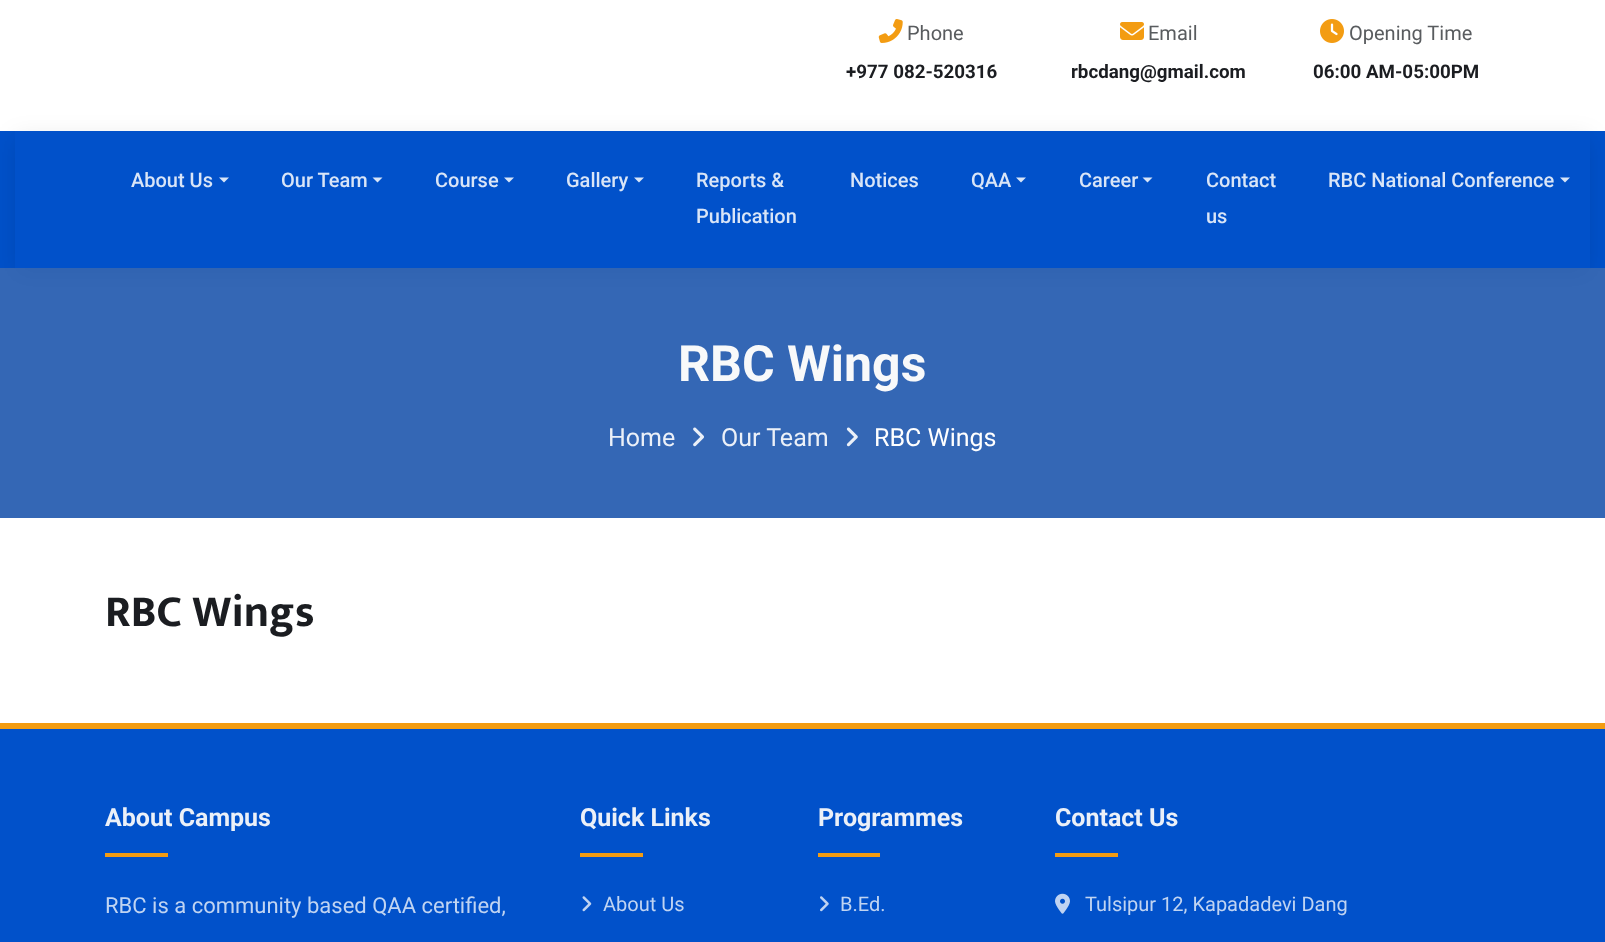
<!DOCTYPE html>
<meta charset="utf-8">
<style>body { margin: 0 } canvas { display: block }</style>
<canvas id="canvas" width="1605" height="942"></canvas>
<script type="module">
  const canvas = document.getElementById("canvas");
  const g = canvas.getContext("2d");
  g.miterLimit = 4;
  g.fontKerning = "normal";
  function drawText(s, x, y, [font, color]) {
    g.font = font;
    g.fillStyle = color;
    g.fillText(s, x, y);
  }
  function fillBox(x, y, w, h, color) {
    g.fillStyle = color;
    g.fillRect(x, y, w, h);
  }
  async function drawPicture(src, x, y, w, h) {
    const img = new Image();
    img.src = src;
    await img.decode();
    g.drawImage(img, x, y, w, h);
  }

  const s1 = ["20px Roboto", "#595C5F"];
  const s2 = ["bold 18.75px Roboto", "#1B1D21"];
  const s3 = ["500 20px Roboto", "#D9E5F7"];
  const s4 = ["bold 50px Roboto", "#F8F9FA"];
  const s5 = ["25px Roboto", "#EBF0F8"];
  const s6 = ["25px Roboto", "#FFFFFF"];
  const s7 = ["bold 45px Mukta", "#1B1D21"];
  const s8 = ["bold 25px Roboto", "#EBF0F8"];
  const s9 = ["22px Roboto", "#C0D4F2"];
  const s10 = ["20px Roboto", "#C0D4F2"];

  fillBox(0, 0, 1605, 942, "#FFFFFF");
  await drawPicture("pic1.png", 878, 19, 25, 24);
  drawText("Phone", 907, 40, s1);
  drawText("+977 082-520316", 846, 78, s2);
  await drawPicture("pic2.png", 1120, 22, 24, 18);
  drawText("Email", 1148, 40, s1);
  drawText("rbcdang@gmail.com", 1071, 78, s2);
  await drawPicture("pic3.png", 1320, 19, 24, 24);
  drawText("Opening Time", 1349, 40, s1);
  drawText("06:00 AM-05:00PM", 1313, 78, s2);
  fillBox(0, 131, 1605, 137, "#0151CA");
  g.fillStyle = "rgba(0, 0, 0, 0.1)";
  g.filter = "blur(12.5px)";
  g.beginPath();
  g.rect(15, 138, 1575, 136);
  g.fill();
  g.filter = "none";
  fillBox(15, 131, 1575, 137, "#0151CA");
  drawText("About Us", 131, 187, s3);
  g.beginPath();
  g.moveTo(219, 177.5);
  g.lineTo(229, 177.5);
  g.lineTo(224, 182.5);
  g.closePath();
  g.fill();
  drawText("Our Team", 281, 187, s3);
  g.beginPath();
  g.moveTo(372.5, 177.5);
  g.lineTo(382.5, 177.5);
  g.lineTo(377.5, 182.5);
  g.closePath();
  g.fill();
  drawText("Course", 435, 187, s3);
  g.beginPath();
  g.moveTo(504, 177.5);
  g.lineTo(514, 177.5);
  g.lineTo(509, 182.5);
  g.closePath();
  g.fill();
  drawText("Gallery", 566, 187, s3);
  g.beginPath();
  g.moveTo(634, 177.5);
  g.lineTo(644, 177.5);
  g.lineTo(639, 182.5);
  g.closePath();
  g.fill();
  drawText("Reports &", 696, 187, s3);
  drawText("Publication", 696, 223, s3);
  drawText("Notices", 850, 187, s3);
  drawText("QAA", 971, 187, s3);
  g.beginPath();
  g.moveTo(1016, 177.5);
  g.lineTo(1026, 177.5);
  g.lineTo(1021, 182.5);
  g.closePath();
  g.fill();
  drawText("Career", 1079, 187, s3);
  g.beginPath();
  g.moveTo(1142.5, 177.5);
  g.lineTo(1152.5, 177.5);
  g.lineTo(1147.5, 182.5);
  g.closePath();
  g.fill();
  drawText("Contact", 1206, 187, s3);
  drawText("us", 1206, 223, s3);
  drawText("RBC National Conference", 1328, 187, s3);
  g.beginPath();
  g.moveTo(1560, 177.5);
  g.lineTo(1570, 177.5);
  g.lineTo(1565, 182.5);
  g.closePath();
  g.fill();
  fillBox(0, 268, 1605, 250, "rgba(1, 65, 162, 0.8)");
  drawText("RBC Wings", 678, 381, s4);
  drawText("Home", 608, 446, s5);
  await drawPicture("pic4.png", 693, 427, 11, 20);
  drawText("Our Team", 721, 446, s5);
  await drawPicture("pic5.png", 846, 427, 12, 20);
  drawText("RBC Wings", 874, 446, s6);
  drawText("RBC Wings", 105, 626, s7);
  fillBox(0, 729, 1605, 213, "#0151CA");
  fillBox(0, 723, 1605, 6, "#F39C12");
  drawText("About Campus", 105, 826, s8);
  fillBox(105, 853, 63, 4, "#F39C12");
  drawText("RBC is a community based QAA certified,", 105, 913, s9);
  drawText("Quick Links", 580, 826, s8);
  fillBox(580, 853, 63, 4, "#F39C12");
  await drawPicture("pic6.png", 582, 896, 10, 16);
  drawText("About Us", 603, 911, s10);
  drawText("Programmes", 818, 826, s8);
  fillBox(818, 853, 62, 4, "#F39C12");
  await drawPicture("pic7.png", 820, 896, 9, 16);
  drawText("B.Ed.", 840, 911, s10);
  drawText("Contact Us", 1055, 826, s8);
  fillBox(1055, 853, 63, 4, "#F39C12");
  await drawPicture("pic8.png", 1055, 893, 15, 21);
  drawText("Tulsipur 12, Kapadadevi Dang", 1085, 911, s10);
</script>
